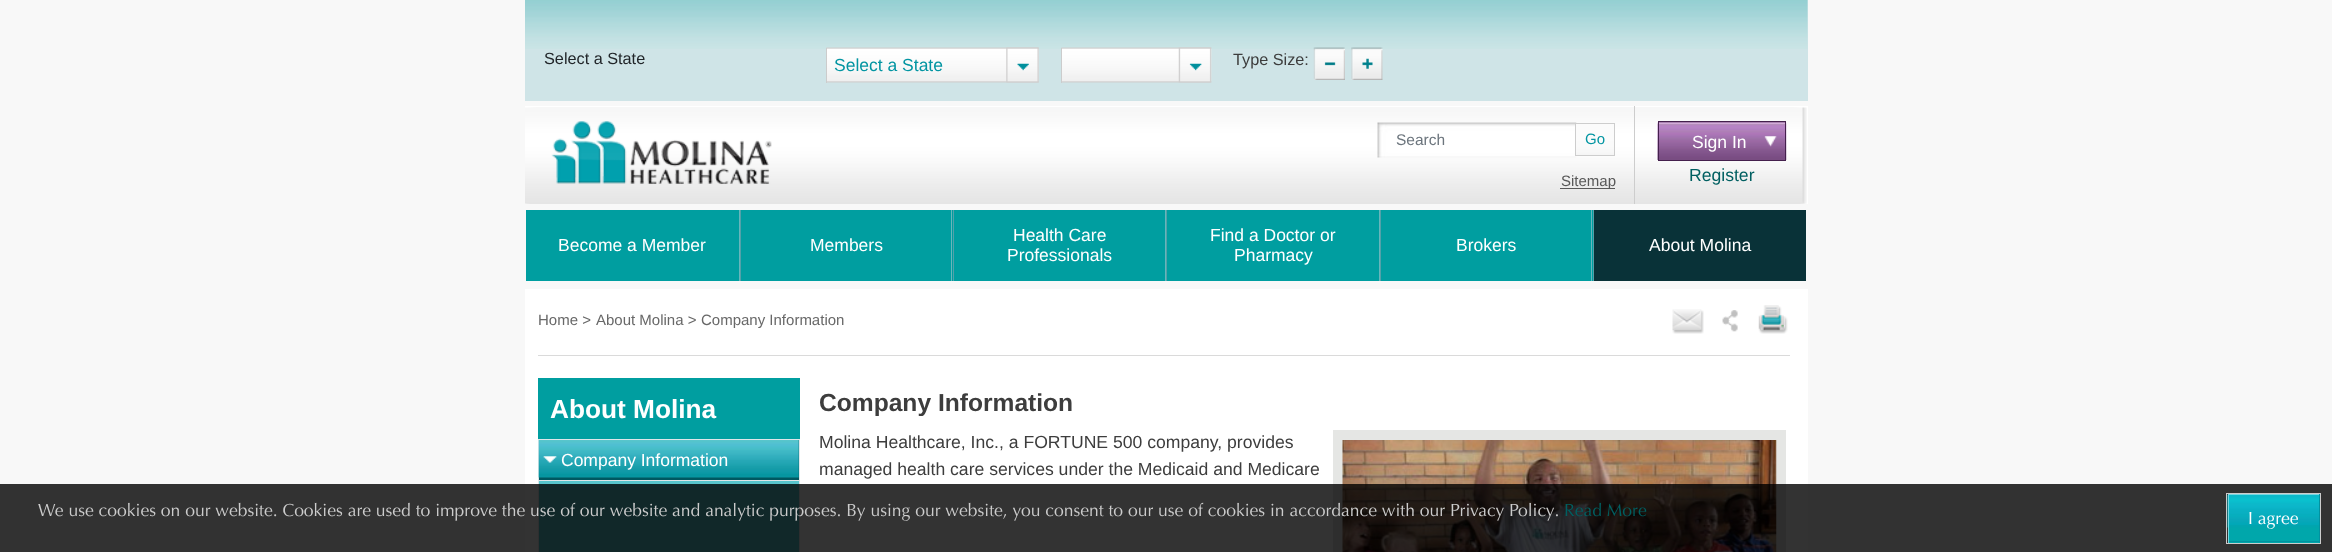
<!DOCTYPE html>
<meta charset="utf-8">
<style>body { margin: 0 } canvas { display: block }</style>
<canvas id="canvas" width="2332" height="552"></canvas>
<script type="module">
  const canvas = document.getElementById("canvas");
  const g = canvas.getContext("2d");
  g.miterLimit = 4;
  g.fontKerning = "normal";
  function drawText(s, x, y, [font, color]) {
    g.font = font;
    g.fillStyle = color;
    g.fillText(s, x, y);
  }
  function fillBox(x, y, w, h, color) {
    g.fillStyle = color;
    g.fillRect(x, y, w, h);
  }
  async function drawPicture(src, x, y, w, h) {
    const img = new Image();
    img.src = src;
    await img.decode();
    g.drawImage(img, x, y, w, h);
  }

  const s1 = ["16.25px Liberation Sans", "#212529"];
  const s2 = ["17.5px Liberation Sans", "#0395A2"];
  const s3 = ["16.25px Liberation Sans", "#3D3D3D"];
  const s4 = ["15.5px Liberation Sans", "#6C757D"];
  const s5 = ["15px Liberation Sans", "#0395A2"];
  const s6 = ["15px Liberation Sans", "#595959"];
  const s7 = ["17.5px Liberation Sans", "#FFFFFF"];
  const s8 = ["17.6px Liberation Sans", "#005F61"];
  const s9 = ["15px Liberation Sans", "#686868"];
  const s10 = ["bold 26.25px Liberation Sans", "#FFFFFF"];
  const s11 = ["bold 24.6px Liberation Sans", "#3D3D3D"];
  const s12 = ["17.6px Liberation Sans", "#3D3D3D"];
  const s13 = ["17.5px Optima", "#CCCCCC"];
  const s14 = ["17.5px Optima", "#005F61"];
  const s15 = ["17.5px Optima", "#FFFFFF"];

  fillBox(0, 0, 2332, 552, "#F8F8F8");
  fillBox(525, 0, 1283, 101, "#CFE4E7");
  await drawPicture("pic1.png", 525, 0, 1283, 49);
  drawText("Select a State", 544, 64, s1);
  await drawPicture("pic2.png", 826, 47, 213, 36);
  fillBox(826, 48, 1, 35, "#CCCCCC");
  drawText("Select a State", 834, 71, s2);
  await drawPicture("pic3.png", 1006, 47, 33, 36);
  await drawPicture("pic4.png", 1061, 47, 151, 36);
  fillBox(1061, 48, 1, 35, "#CCCCCC");
  await drawPicture("pic5.png", 1178, 47, 34, 36);
  drawText("Type Size:", 1233, 65, s3);
  await drawPicture("pic6.png", 1313, 47, 32, 33);
  await drawPicture("pic7.png", 1351, 47, 32, 33);
  fillBox(525, 106, 1283, 98, "#FFFFFF");
  await drawPicture("pic8.png", 525, 107, 1282, 97);
  await drawPicture("pic9.png", 551, 121, 221, 63);
  await drawPicture("pic10.png", 1377, 122, 200, 36);
  drawText("Search", 1396, 145, s4);
  await drawPicture("pic11.png", 1576, 124, 38, 31);
  g.strokeStyle = "#CDCDCD";
  g.strokeRect(1575.5, 123.5, 39, 32);
  drawText("Go", 1585, 144, s5);
  fillBox(1560, 188, 55, 1, "#595959");
  drawText("Sitemap", 1561, 186, s6);
  fillBox(1634, 106, 1, 98, "#CDCDCD");
  fillBox(1659, 122, 126, 1, "#774C81");
  await drawPicture("pic12.png", 1657, 122, 130, 38);
  g.strokeStyle = "#44204D";
  g.strokeRect(1658.5, 121.5, 127, 39);
  drawText("Sign In", 1692, 148, s7);
  await drawPicture("pic13.png", 1764, 136, 13, 11);
  drawText("Register", 1689, 181, s8);
  fillBox(526, 210, 213, 71, "#009EA0");
  fillBox(739, 210, 1, 71, "#68B6BC");
  drawText("Become a Member", 558, 251, s7);
  fillBox(741, 210, 212, 71, "#009EA0");
  fillBox(951, 210, 1, 71, "#68B6BC");
  fillBox(740, 210, 1, 71, "#53A1A9");
  drawText("Members", 810, 251, s7);
  fillBox(954, 210, 211, 71, "#009EA0");
  fillBox(1165, 210, 1, 71, "#68B6BC");
  fillBox(953, 210, 1, 71, "#53A1A9");
  drawText("Health Care", 1013, 241, s7);
  drawText("Professionals", 1007, 261, s7);
  fillBox(1167, 210, 212, 71, "#009EA0");
  fillBox(1379, 210, 1, 71, "#68B6BC");
  fillBox(1166, 210, 1, 71, "#53A1A9");
  drawText("Find a Doctor or", 1210, 241, s7);
  drawText("Pharmacy", 1234, 261, s7);
  fillBox(1381, 210, 212, 71, "#009EA0");
  fillBox(1591, 210, 1, 71, "#68B6BC");
  fillBox(1380, 210, 1, 71, "#53A1A9");
  drawText("Brokers", 1456, 251, s7);
  fillBox(1594, 210, 212, 71, "#093238");
  fillBox(1593, 210, 1, 71, "#53A1A9");
  drawText("About Molina", 1649, 251, s7);
  fillBox(525, 289, 1283, 263, "#FFFFFF");
  fillBox(538, 355, 1252, 1, "#DADADA");
  drawText("Home >", 538, 325, s9);
  drawText("About Molina >", 596, 325, s9);
  drawText("Company Information", 701, 325, s9);
  await drawPicture("pic14.png", 1672, 309, 32, 25);
  await drawPicture("pic15.png", 1722, 310, 16, 22);
  await drawPicture("pic16.png", 1758, 305, 30, 29);
  fillBox(538, 378, 262, 61, "#009EA0");
  drawText("About Molina", 550, 418, s10);
  fillBox(538, 439, 262, 1, "#DEE6E9");
  fillBox(799, 439, 1, 113, "#DEE6E9");
  fillBox(538, 439, 1, 113, "#DEE6E9");
  fillBox(539, 440, 260, 40, "#005861");
  await drawPicture("pic17.png", 538, 440, 261, 38);
  fillBox(539, 480, 260, 1, "#DEE6E9");
  await drawPicture("pic18.png", 543, 456, 14, 7);
  drawText("Company Information", 561, 466, s7);
  fillBox(539, 481, 260, 71, "#58C5CC");
  drawText("Company Information", 819, 411, s11);
  drawText("Molina Healthcare, Inc., a FORTUNE 500 company, provides", 819, 448, s12);
  fillBox(1333, 430, 453, 122, "#E5E6E4");
  await drawPicture("pic19.png", 1342, 440, 435, 112);
  drawText("managed health care services under the Medicaid and Medicare", 819, 475, s12);
  fillBox(0, 484, 2332, 68, "rgba(0, 0, 0, 0.8)");
  drawText("We use cookies on our website. Cookies are used to improve the use of our website and analytic purposes. By using our website, you consent to our use of cookies in accordance with our Privacy Policy.", 38, 516, s13);
  drawText("Read More", 1564, 516, s14);
  fillBox(2229, 527, 90, 16, "#00A7AB");
  await drawPicture("pic20.png", 2227, 495, 92, 33);
  fillBox(2228, 494, 92, 1, "#75D7E2");
  fillBox(2319, 494, 1, 49, "#0292A0");
  fillBox(2228, 541, 92, 1, "#0292A0");
  fillBox(2228, 494, 1, 49, "#75D7E2");
  g.strokeStyle = "#CCCCCC";
  g.strokeRect(2226.5, 493.5, 94, 50);
  drawText("I agree", 2248, 524, s15);
</script>
